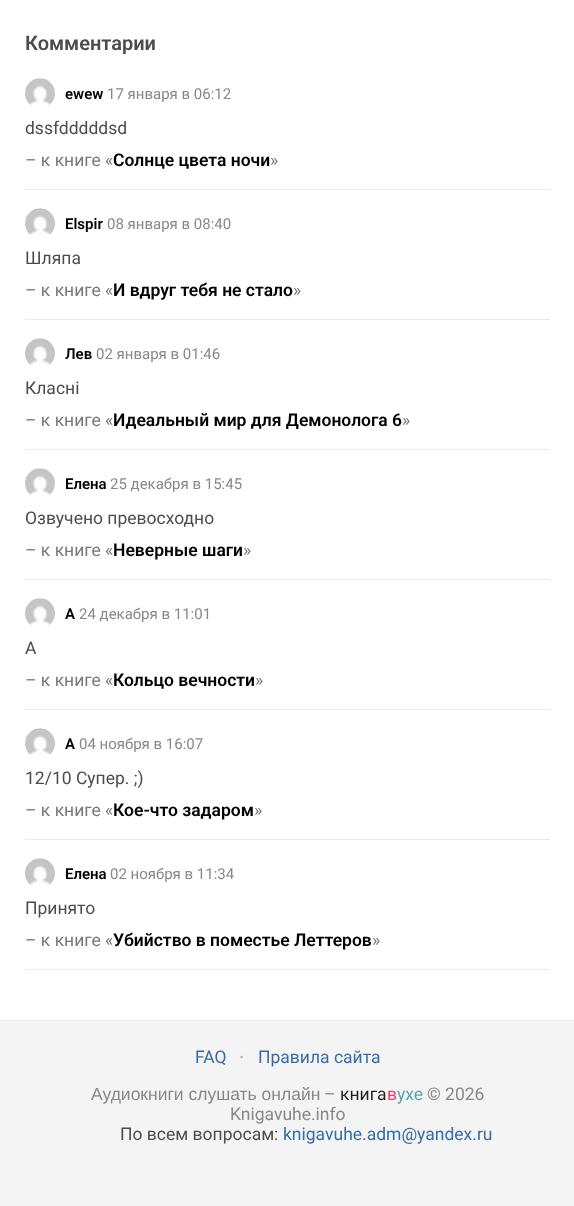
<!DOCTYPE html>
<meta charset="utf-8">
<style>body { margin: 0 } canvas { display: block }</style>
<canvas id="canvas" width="574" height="1206"></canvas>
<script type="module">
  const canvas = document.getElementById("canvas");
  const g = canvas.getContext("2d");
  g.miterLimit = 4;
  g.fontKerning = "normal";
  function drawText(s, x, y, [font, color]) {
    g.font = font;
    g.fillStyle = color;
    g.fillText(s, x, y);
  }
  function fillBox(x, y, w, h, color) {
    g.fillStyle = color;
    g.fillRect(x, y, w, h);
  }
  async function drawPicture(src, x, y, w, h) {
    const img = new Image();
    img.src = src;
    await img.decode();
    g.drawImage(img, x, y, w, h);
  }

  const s1 = ["600 20px Roboto", "#4C4C4C"];
  const s2 = ["600 15px Roboto", "#000000"];
  const s3 = ["15px Roboto", "#888888"];
  const s4 = ["17.5px Roboto", "#4C4C4C"];
  const s5 = ["17.5px Roboto", "#777777"];
  const s6 = ["600 17.5px Roboto", "#000000"];
  const s7 = ["17.5px Roboto", "#386CA8"];
  const s8 = ["bold 17.5px Roboto", "#BBBBBB"];
  const s9 = ["17.5px Liberation Sans", "#888888"];
  const s10 = ["17.5px Roboto", "#888888"];
  const s11 = ["17.5px Roboto", "#231F20"];
  const s12 = ["17.5px Roboto", "#F03B6D"];
  const s13 = ["17.5px Roboto", "#54A7AA"];

  fillBox(0, 0, 574, 1206, "#F4F4F4");
  fillBox(0, 0, 574, 1020, "#FFFFFF");
  drawText("Комментарии", 25, 50, s1);
  fillBox(25, 189, 525, 1, "#EAEAEA");
  await drawPicture("pic1.png", 25, 78, 30, 27);
  drawText("ewew", 65, 99, s2);
  drawText("17 января в 06:12", 107, 99, s3);
  drawText("dssfdddddsd", 25, 134, s4);
  drawText("– к книге «", 25, 166, s5);
  drawText("Солнце цвета ночи", 113, 166, s6);
  drawText("»", 270, 166, s5);
  fillBox(25, 319, 525, 1, "#EAEAEA");
  await drawPicture("pic2.png", 25, 208, 30, 27);
  drawText("Elspir", 65, 229, s2);
  drawText("08 января в 08:40", 107, 229, s3);
  drawText("Шляпа", 25, 264, s4);
  drawText("– к книге «", 25, 296, s5);
  drawText("И вдруг тебя не стало", 113, 296, s6);
  drawText("»", 293, 296, s5);
  fillBox(25, 449, 525, 1, "#EAEAEA");
  await drawPicture("pic3.png", 25, 338, 30, 27);
  drawText("Лев", 65, 359, s2);
  drawText("02 января в 01:46", 96, 359, s3);
  drawText("Класні", 25, 394, s4);
  drawText("– к книге «", 25, 426, s5);
  drawText("Идеальный мир для Демонолога 6", 113, 426, s6);
  drawText("»", 402, 426, s5);
  fillBox(25, 579, 525, 1, "#EAEAEA");
  await drawPicture("pic2.png", 25, 468, 30, 27);
  drawText("Елена", 65, 489, s2);
  drawText("25 декабря в 15:45", 110, 489, s3);
  drawText("Озвучено превосходно", 25, 524, s4);
  drawText("– к книге «", 25, 556, s5);
  drawText("Неверные шаги", 113, 556, s6);
  drawText("»", 243, 556, s5);
  fillBox(25, 709, 525, 1, "#EAEAEA");
  await drawPicture("pic4.png", 25, 598, 30, 27);
  drawText("А", 65, 619, s2);
  drawText("24 декабря в 11:01", 79, 619, s3);
  drawText("А", 25, 654, s4);
  drawText("– к книге «", 25, 686, s5);
  drawText("Кольцо вечности", 113, 686, s6);
  drawText("»", 255, 686, s5);
  fillBox(25, 839, 525, 1, "#EAEAEA");
  await drawPicture("pic2.png", 25, 728, 30, 27);
  drawText("А", 65, 749, s2);
  drawText("04 ноября в 16:07", 79, 749, s3);
  drawText("12/10 Супер. ;)", 25, 784, s4);
  drawText("– к книге «", 25, 816, s5);
  drawText("Кое-что задаром", 113, 816, s6);
  drawText("»", 254, 816, s5);
  fillBox(25, 969, 525, 1, "#EAEAEA");
  await drawPicture("pic5.png", 25, 858, 30, 27);
  drawText("Елена", 65, 879, s2);
  drawText("02 ноября в 11:34", 110, 879, s3);
  drawText("Принято", 25, 914, s4);
  drawText("– к книге «", 25, 946, s5);
  drawText("Убийство в поместье Леттеров", 113, 946, s6);
  drawText("»", 372, 946, s5);
  fillBox(0, 1020, 574, 1, "#EAEAEA");
  drawText("FAQ", 195, 1063, s7);
  drawText("·", 239, 1063, s8);
  drawText("Правила сайта", 258, 1063, s7);
  drawText("Аудиокниги слушать онлайн", 91, 1100, s9);
  drawText("–", 324, 1100, s10);
  drawText("книга", 340, 1100, s11);
  drawText("в", 387, 1100, s12);
  drawText("ухе", 397, 1100, s13);
  drawText("© 2026", 427, 1100, s10);
  drawText("Knigavuhe.info", 230, 1120, s10);
  drawText("По всем вопросам:", 120, 1140, s4);
  drawText("knigavuhe.adm@yandex.ru", 283, 1140, s7);
</script>
